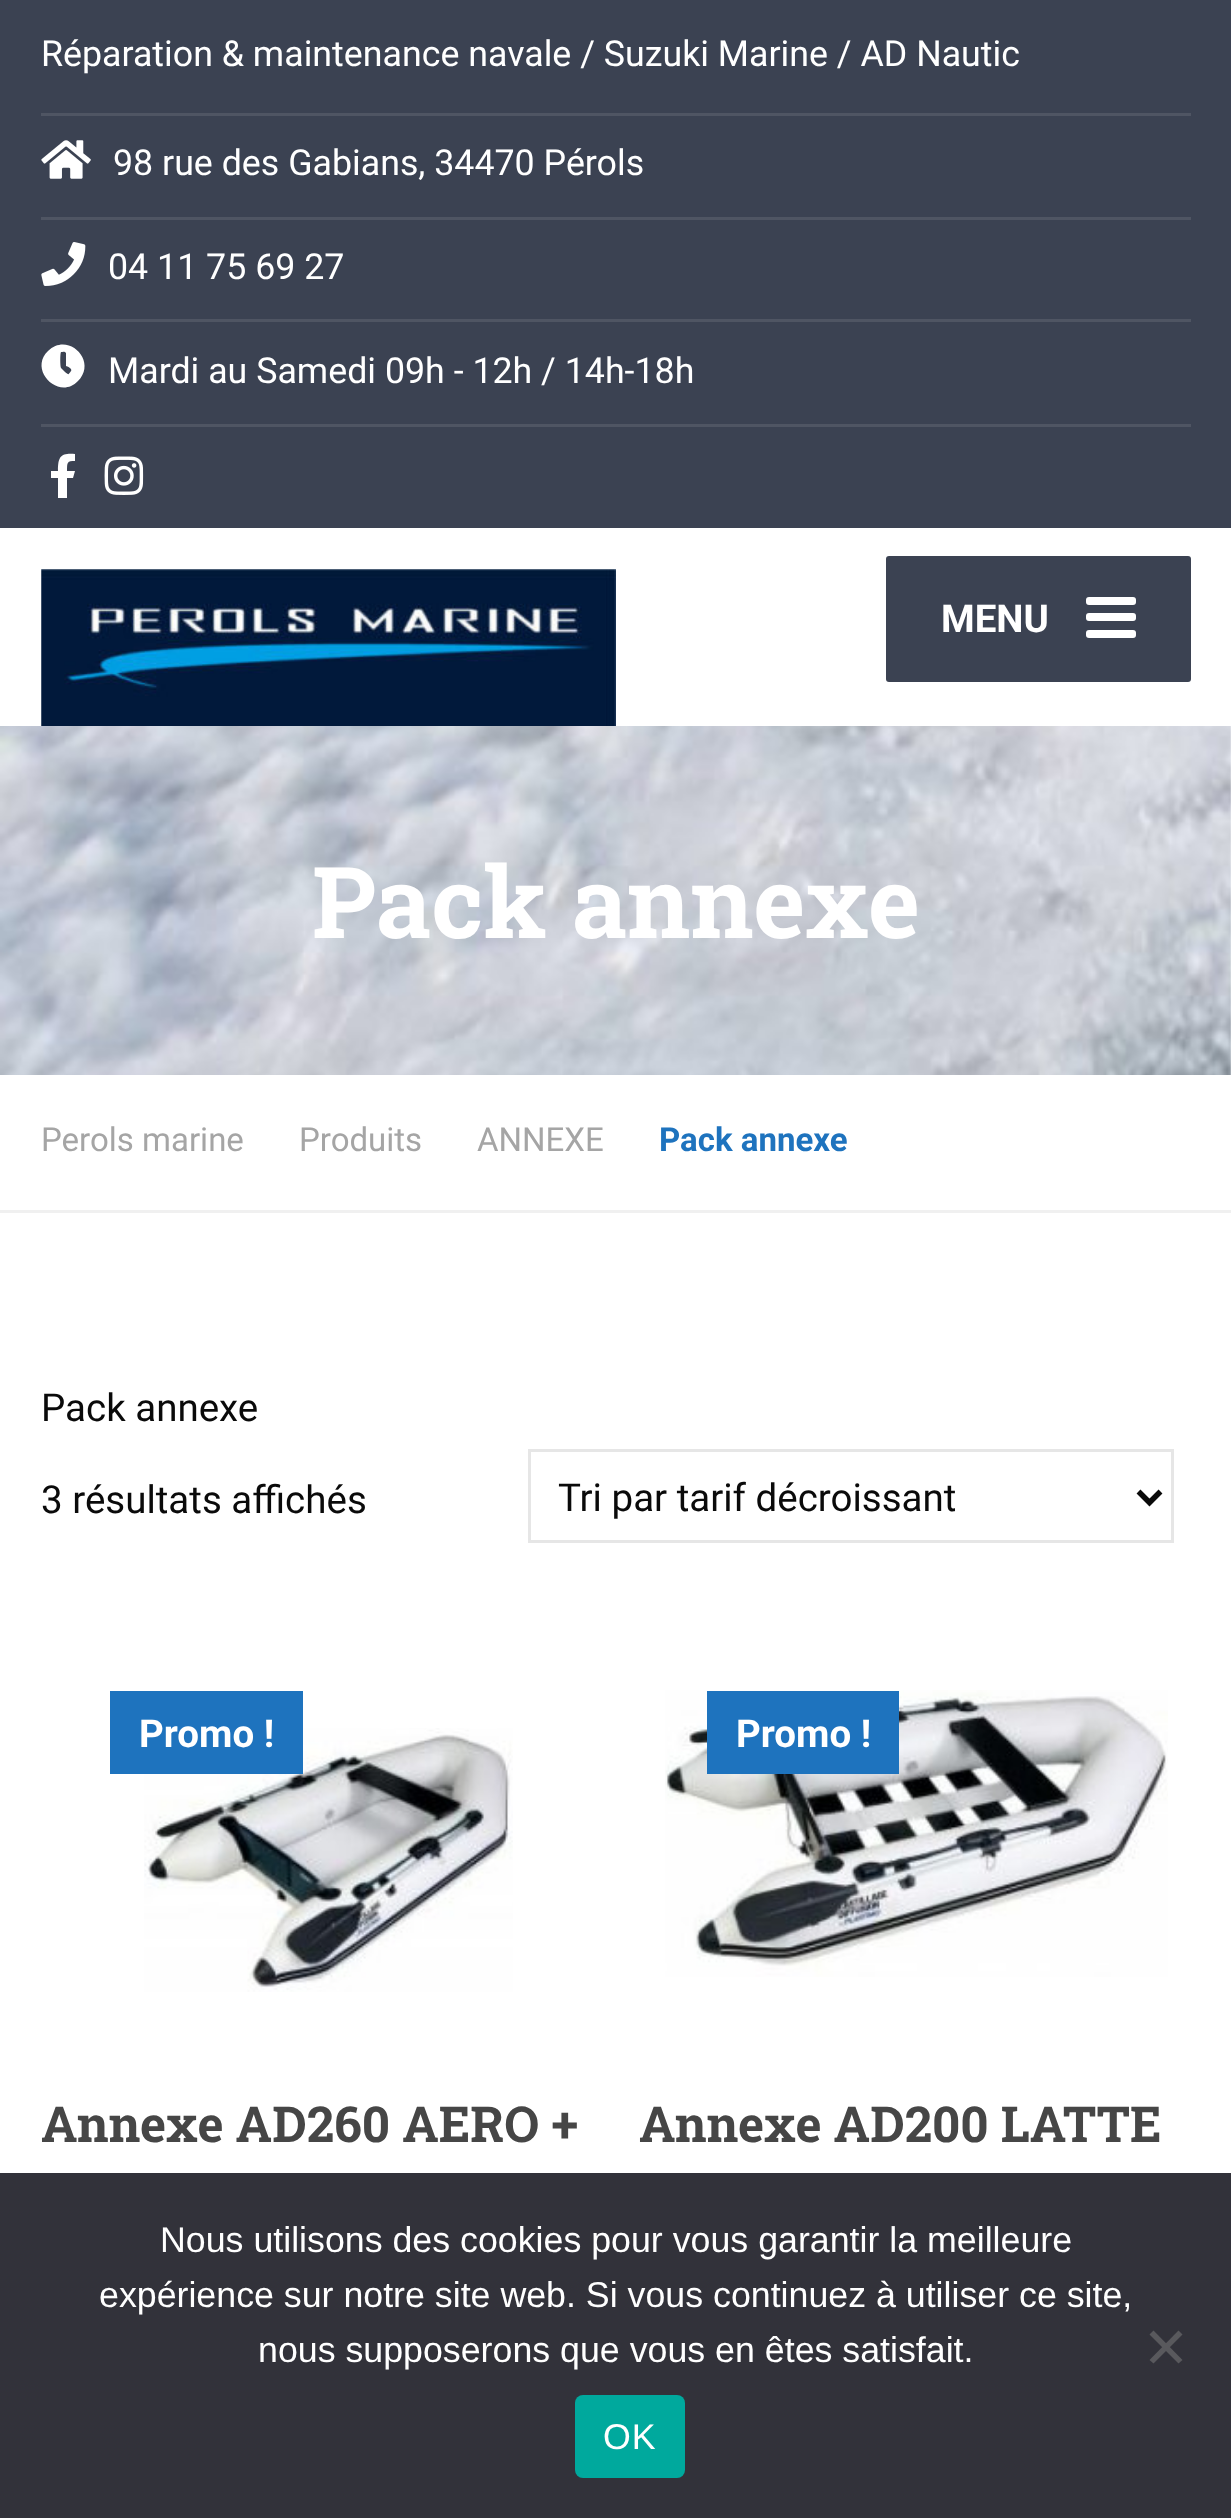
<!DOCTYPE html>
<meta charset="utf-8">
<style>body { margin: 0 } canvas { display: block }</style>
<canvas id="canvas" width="1231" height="2518"></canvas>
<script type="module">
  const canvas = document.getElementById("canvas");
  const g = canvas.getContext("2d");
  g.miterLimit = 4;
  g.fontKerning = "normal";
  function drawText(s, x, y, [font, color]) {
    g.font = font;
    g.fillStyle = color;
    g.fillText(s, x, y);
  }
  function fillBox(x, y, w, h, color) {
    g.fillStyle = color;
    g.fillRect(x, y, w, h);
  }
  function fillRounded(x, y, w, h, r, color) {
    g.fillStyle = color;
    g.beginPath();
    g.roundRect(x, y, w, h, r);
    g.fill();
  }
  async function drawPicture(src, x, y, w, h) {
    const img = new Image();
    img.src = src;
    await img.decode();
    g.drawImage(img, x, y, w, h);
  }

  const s1 = ["35.75px Roboto", "#FFFFFF"];
  const s2 = ["bold 38.5px Roboto", "#FFFFFF"];
  const s3 = ["bold 99px Roboto Slab", "#FFFFFF"];
  const s4 = ["33px Roboto", "#A5A5A5"];
  const s5 = ["bold 33px Roboto", "#1E73BE"];
  const s6 = ["38.5px Roboto", "#0A0A0A"];
  const s7 = ["bold 49.5px Roboto Slab", "#464646"];
  const s8 = ["35.75px Liberation Sans", "#FFFFFF"];

  fillBox(0, 0, 1231, 2518, "#FFFFFF");
  fillBox(0, 0, 1231, 528, "#3B4252");
  drawText("Réparation & maintenance navale / Suzuki Marine / AD Nautic", 41, 66, s1);
  fillBox(41, 113, 1150, 3, "#4F5563");
  await drawPicture("pic1.png", 41, 140, 50, 39);
  drawText("98 rue des Gabians, 34470 Pérols", 113, 175, s1);
  fillBox(41, 217, 1150, 3, "#4F5563");
  await drawPicture("pic2.png", 41, 242, 45, 44);
  drawText("04 11 75 69 27", 108, 279, s1);
  fillBox(41, 319, 1150, 3, "#4F5563");
  g.fillStyle = "#FFFFFF";
  g.beginPath();
  g.moveTo(48, 351);
  g.bezierCurveTo(68, 331, 98, 361, 78, 381);
  g.bezierCurveTo(59, 401, 28, 370, 48, 351);
  g.closePath();
  g.moveTo(71, 371);
  g.bezierCurveTo(73, 369, 67, 366, 66, 366);
  g.lineTo(66, 353);
  g.bezierCurveTo(65, 351, 62, 352, 61, 352);
  g.bezierCurveTo(60, 353, 60, 367, 61, 368);
  g.lineTo(65, 372);
  g.bezierCurveTo(69, 375, 68, 375, 71, 371);
  g.closePath();
  g.fill();
  drawText("Mardi au Samedi 09h - 12h / 14h-18h", 108, 383, s1);
  fillBox(41, 424, 1150, 3, "#4F5563");
  g.fillStyle = "#FFFFFF";
  g.beginPath();
  g.moveTo(73, 478);
  g.lineTo(67, 478);
  g.lineTo(67, 498);
  g.lineTo(58, 498);
  g.lineTo(58, 478);
  g.lineTo(51, 478);
  g.lineTo(51, 471);
  g.lineTo(58, 471);
  g.bezierCurveTo(58, 456, 61, 453, 75, 454);
  g.lineTo(75, 461);
  g.bezierCurveTo(67, 461, 67, 462, 67, 471);
  g.lineTo(75, 471);
  g.closePath();
  g.fill();
  await drawPicture("pic3.png", 104, 456, 40, 39);
  await drawPicture("pic4.png", 41, 569, 575, 157);
  fillRounded(886, 556, 305, 126, 3, "#3B4252");
  drawText("MENU", 941, 632, s2);
  fillRounded(1086, 597, 50, 8, 3, "#FFFFFF");
  fillRounded(1086, 613, 50, 8, 3, "#FFFFFF");
  fillRounded(1086, 630, 50, 8, 3, "#FFFFFF");
  await drawPicture("pic5.png", 0, 726, 1231, 349);
  drawText("Pack annexe", 312, 938, s3);
  fillBox(0, 1210, 1231, 3, "#F0F0F0");
  drawText("Perols marine", 41, 1151, s4);
  drawText("Produits", 299, 1151, s4);
  drawText("ANNEXE", 477, 1151, s4);
  drawText("Pack annexe", 659, 1151, s5);
  drawText("Pack annexe", 41, 1421, s6);
  drawText("3 résultats affichés", 41, 1513, s6);
  g.strokeStyle = "#E6E6E6";
  g.lineWidth = 3;
  g.strokeRect(529.5, 1450.5, 643, 91);
  g.beginPath();
  g.moveTo(1138.5, 1491.5);
  g.lineTo(1149.5, 1502.5);
  g.lineTo(1160.5, 1491.5);
  g.strokeStyle = "#0A0A0A";
  g.lineWidth = 5.5;
  g.stroke();
  drawText("Tri par tarif décroissant", 558, 1511, s6);
  await drawPicture("pic6.png", 144, 1728, 369, 264);
  fillBox(110, 1691, 193, 83, "#1E73BE");
  drawText("Promo !", 139, 1747, s2);
  drawText("Annexe AD260 AERO +", 41, 2142, s7);
  await drawPicture("pic7.png", 665, 1690, 503, 287);
  fillBox(707, 1691, 192, 83, "#1E73BE");
  drawText("Promo !", 736, 1747, s2);
  drawText("Annexe AD200 LATTE", 639, 2142, s7);
  fillBox(0, 2173, 1231, 345, "#32323A");
  drawText("Nous utilisons des cookies pour vous garantir la meilleure", 160, 2252, s8);
  drawText("expérience sur notre site web. Si vous continuez à utiliser ce site,", 99, 2307, s8);
  drawText("nous supposerons que vous en êtes satisfait.", 258, 2362, s8);
  g.fillStyle = "#59595D";
  g.beginPath();
  g.moveTo(1178.5, 2330.5);
  g.lineTo(1182.5, 2334.5);
  g.lineTo(1153.5, 2363.5);
  g.lineTo(1149.5, 2360);
  g.closePath();
  g.fill();
  g.beginPath();
  g.moveTo(1149.5, 2334.5);
  g.lineTo(1153.5, 2330.5);
  g.lineTo(1182.5, 2360);
  g.lineTo(1178.5, 2363.5);
  g.closePath();
  g.fill();
  fillRounded(575, 2395, 110, 83, 8, "#00A99D");
  g.letterSpacing = "1px";
  drawText("OK", 603, 2449, s8);
</script>
